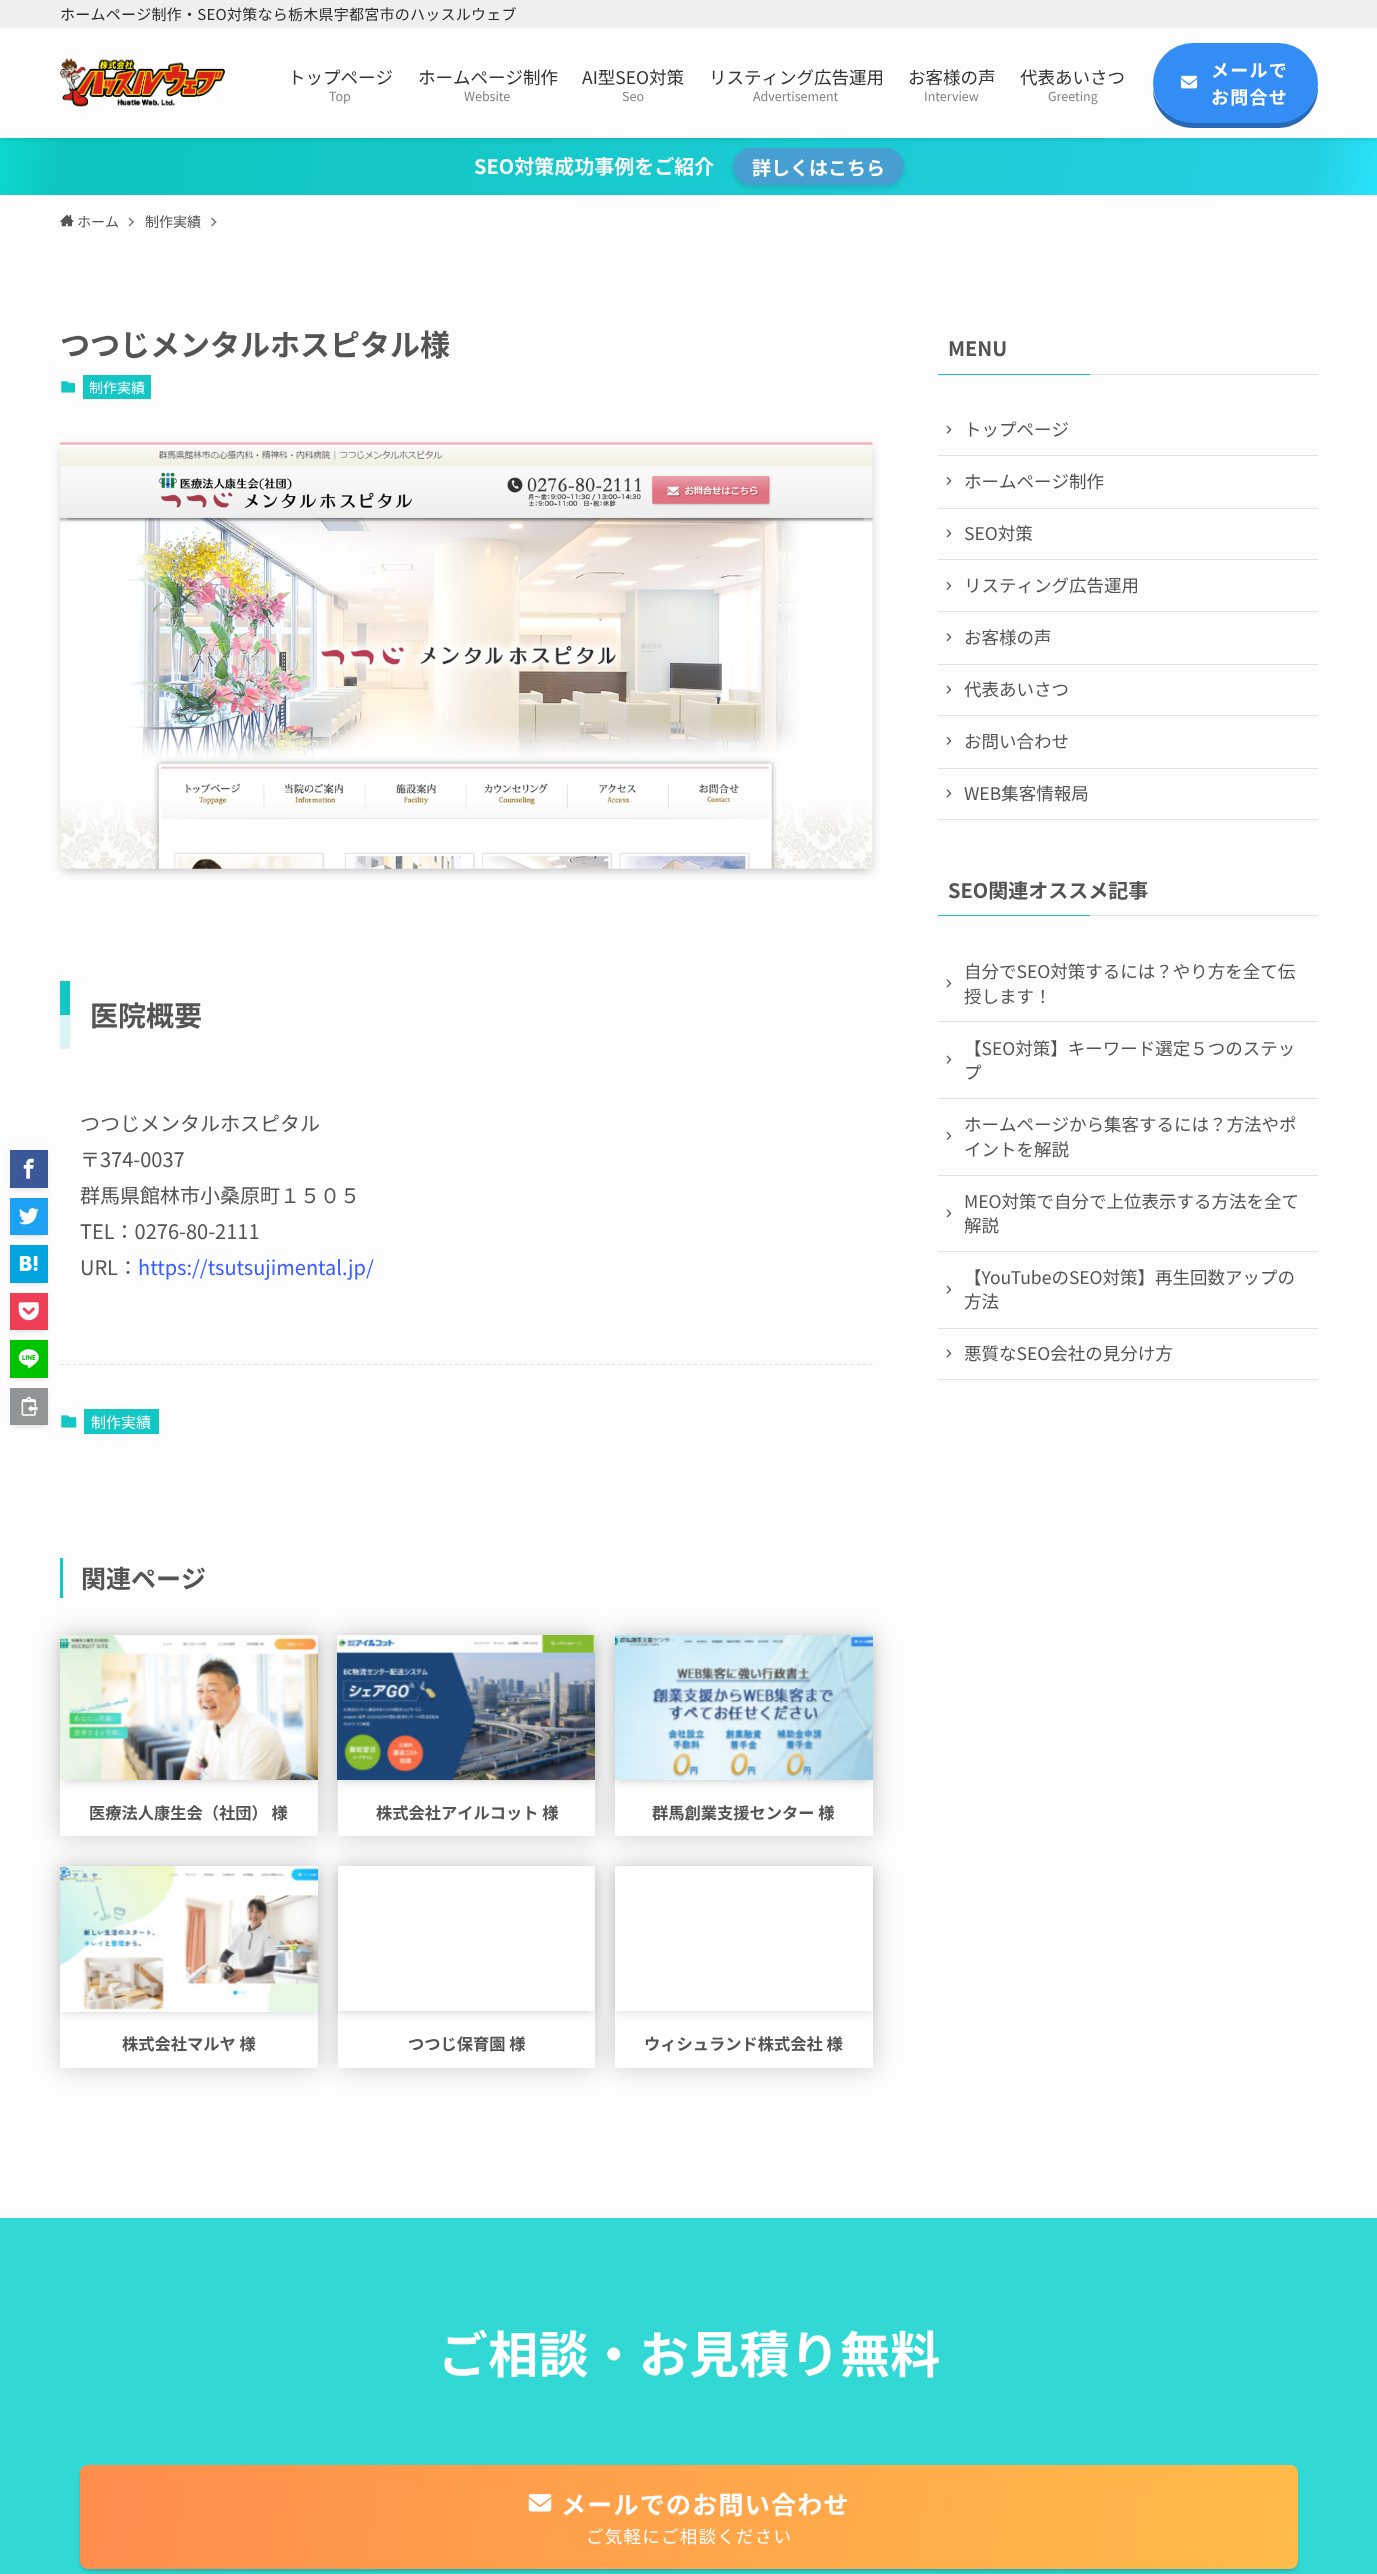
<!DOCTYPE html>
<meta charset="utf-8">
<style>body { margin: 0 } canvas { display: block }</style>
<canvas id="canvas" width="1377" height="2574"></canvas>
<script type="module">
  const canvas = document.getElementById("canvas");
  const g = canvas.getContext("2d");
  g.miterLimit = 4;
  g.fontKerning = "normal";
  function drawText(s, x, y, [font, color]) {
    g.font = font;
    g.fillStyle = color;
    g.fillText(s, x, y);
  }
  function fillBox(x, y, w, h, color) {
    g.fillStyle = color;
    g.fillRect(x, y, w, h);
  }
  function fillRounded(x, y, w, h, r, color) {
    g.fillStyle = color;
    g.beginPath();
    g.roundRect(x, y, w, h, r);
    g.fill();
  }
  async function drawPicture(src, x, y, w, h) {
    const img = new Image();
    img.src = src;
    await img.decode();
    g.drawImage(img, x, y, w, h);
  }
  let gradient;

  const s1 = ["15px Noto Sans JP", "#2B2B2B"];
  const s2 = ["17.5px Noto Sans JP", "#333333"];
  const s3 = ["12.5px Noto Sans JP", "#848484"];
  const s4 = ["bold 18px Noto Sans JP", "#FFFFFF"];
  const s5 = ["bold 20px Noto Sans JP", "#F7F7F7"];
  const s6 = ["bold 19px Noto Sans JP", "#FFFFFF"];
  const s7 = ["14px Noto Sans JP", "#545454"];
  const s8 = ["bold 30px Noto Sans JP", "#545454"];
  const s9 = ["14px Noto Sans JP", "#FFFFFF"];
  const s10 = ["bold 28px Noto Sans JP", "#545454"];
  const s11 = ["20px Noto Sans JP", "#545454"];
  const s12 = ["20px Noto Sans JP", "#385CFF"];
  const s13 = ["15px Noto Sans JP", "#FFFFFF"];
  const s14 = ["bold 25px Noto Sans JP", "#545454"];
  const s15 = ["bold 16.25px Noto Sans JP", "#545454"];
  const s16 = ["bold 20px Noto Sans JP", "#545454"];
  const s17 = ["17.5px Noto Sans JP", "#545454"];
  const s18 = ["bold 50px Noto Sans JP", "#FFFFFF"];
  const s19 = ["bold 25px Noto Sans JP", "#FFFFFF"];
  const s20 = ["17.5px Noto Sans JP", "#FFFFFF"];

  fillBox(0, 0, 1377, 2574, "#FDFDFD");
  gradient = g.createLinearGradient(16, 48, 1362, 285);
  gradient.addColorStop(0, "#0ED9CF");
  gradient.addColorStop(0.05, "#0DC5BC");
  gradient.addColorStop(0.95, "#24CFE2");
  gradient.addColorStop(1, "#28E4F9");
  g.fillStyle = gradient;
  g.fillRect(0, 138, 1377, 57);
  g.fillStyle = "rgba(0, 0, 0, 0.12)";
  g.filter = "blur(2.5px)";
  g.beginPath();
  g.rect(0, 1, 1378, 138);
  g.fill();
  g.filter = "none";
  fillBox(0, 28, 1377, 110, "#FDFDFD");
  fillBox(0, 0, 1377, 28, "#EEF0EF");
  g.letterSpacing = "0.25px";
  drawText("ホームページ制作・SEO対策なら栃木県宇都宮市のハッスルウェブ", 60, 20, s1);
  await drawPicture("pic1.png", 60, 58, 165, 49);
  g.letterSpacing = "0px";
  drawText("トップページ", 288, 84, s2);
  drawText("Top", 329, 101, s3);
  drawText("ホームページ制作", 418, 84, s2);
  drawText("Website", 464, 101, s3);
  drawText("AI型SEO対策", 582, 84, s2);
  drawText("Seo", 622, 101, s3);
  drawText("リスティング広告運用", 709, 84, s2);
  drawText("Advertisement", 753, 101, s3);
  drawText("お客様の声", 908, 84, s2);
  drawText("Interview", 924, 101, s3);
  drawText("代表あいさつ", 1020, 84, s2);
  drawText("Greeting", 1048, 101, s3);
  g.fillStyle = "#266AB7";
  g.beginPath();
  g.moveTo(1153, 89);
  g.bezierCurveTo(1153, 111, 1171, 128, 1193, 128);
  g.lineTo(1278, 128);
  g.bezierCurveTo(1300, 128, 1318, 110, 1318, 88);
  g.lineTo(1317, 82);
  g.lineTo(1318, 82);
  g.bezierCurveTo(1318, 105, 1300, 122, 1278, 122);
  g.lineTo(1192, 122);
  g.bezierCurveTo(1173, 122, 1156, 108, 1153, 89);
  g.closePath();
  g.fill();
  fillRounded(1153, 43, 165, 80, 40, "#338DF4");
  await drawPicture("pic2.png", 1180, 75, 18, 14);
  g.letterSpacing = "1.25px";
  drawText("メールで", 1211, 77, s4);
  drawText("お問合せ", 1211, 104, s4);
  g.letterSpacing = "0px";
  drawText("SEO対策成功事例をご紹介", 474, 174, s5);
  g.fillStyle = "rgba(0, 0, 0, 0.12)";
  g.filter = "blur(2.5px)";
  g.beginPath();
  g.roundRect(733, 150, 171, 38, 19);
  g.fill();
  g.filter = "none";
  fillRounded(733, 148, 171, 37, 18.5, "#479ED1");
  drawText("詳しくはこちら", 752, 175, s6);
  await drawPicture("pic3.png", 60, 214, 14, 13);
  drawText("ホーム", 77, 227, s7);
  g.fillStyle = "#767676";
  g.beginPath();
  g.moveTo(129.5, 217.5);
  g.lineTo(134, 222);
  g.lineTo(133, 223);
  g.lineTo(128.5, 218.5);
  g.closePath();
  g.fill();
  g.beginPath();
  g.moveTo(133, 221);
  g.lineTo(134, 222);
  g.lineTo(129.5, 226.5);
  g.lineTo(128.5, 225.5);
  g.closePath();
  g.fill();
  drawText("制作実績", 145, 227, s7);
  g.fillStyle = "#767676";
  g.beginPath();
  g.moveTo(212, 217.5);
  g.lineTo(216.5, 222);
  g.lineTo(215.5, 223);
  g.lineTo(211, 218.5);
  g.closePath();
  g.fill();
  g.beginPath();
  g.moveTo(215.5, 221);
  g.lineTo(216.5, 222);
  g.lineTo(212, 226.5);
  g.lineTo(211, 225.5);
  g.closePath();
  g.fill();
  drawText("つつじメンタルホスピタル様", 60, 356, s8);
  await drawPicture("pic4.png", 61, 381, 14, 12);
  fillBox(83, 375, 68, 24, "#12C7C4");
  drawText("制作実績", 89, 393, s9);
  g.fillStyle = "rgba(0, 0, 0, 0.2)";
  g.filter = "blur(5px)";
  g.beginPath();
  g.rect(65, 453, 803, 416);
  g.fill();
  g.filter = "none";
  g.fillStyle = "rgba(0, 0, 0, 0.1)";
  g.filter = "blur(5px)";
  g.beginPath();
  g.rect(60, 445, 813, 426);
  g.fill();
  g.filter = "none";
  await drawPicture("pic5.png", 60, 442, 813, 427);
  g.filter = "blur(2.5px)";
  g.beginPath();
  g.rect(15, 1160, 28, 28);
  g.fill();
  g.filter = "none";
  g.fillStyle = "rgba(0, 0, 0, 0.05)";
  g.filter = "blur(2.5px)";
  g.beginPath();
  g.rect(10, 1153, 38, 37);
  g.fill();
  g.filter = "none";
  fillBox(10, 1150, 38, 38, "#3B5998");
  await drawPicture("pic6.png", 23, 1158, 11, 21);
  g.fillStyle = "rgba(0, 0, 0, 0.1)";
  g.filter = "blur(2.5px)";
  g.beginPath();
  g.rect(15, 1208, 28, 27);
  g.fill();
  g.filter = "none";
  g.fillStyle = "rgba(0, 0, 0, 0.05)";
  g.filter = "blur(2.5px)";
  g.beginPath();
  g.rect(10, 1200, 38, 38);
  g.fill();
  g.filter = "none";
  fillBox(10, 1198, 38, 37, "#1DA1F2");
  await drawPicture("pic7.png", 19, 1208, 20, 17);
  g.fillStyle = "rgba(0, 0, 0, 0.1)";
  g.filter = "blur(2.5px)";
  g.beginPath();
  g.rect(15, 1255, 28, 28);
  g.fill();
  g.filter = "none";
  g.fillStyle = "rgba(0, 0, 0, 0.05)";
  g.filter = "blur(2.5px)";
  g.beginPath();
  g.rect(10, 1248, 38, 37);
  g.fill();
  g.filter = "none";
  fillBox(10, 1245, 38, 38, "#00A4DE");
  await drawPicture("pic8.png", 19, 1256, 19, 15);
  g.fillStyle = "rgba(0, 0, 0, 0.1)";
  g.filter = "blur(2.5px)";
  g.beginPath();
  g.rect(15, 1303, 28, 27);
  g.fill();
  g.filter = "none";
  g.fillStyle = "rgba(0, 0, 0, 0.05)";
  g.filter = "blur(2.5px)";
  g.beginPath();
  g.rect(10, 1295, 38, 38);
  g.fill();
  g.filter = "none";
  fillBox(10, 1293, 38, 37, "#EF3F56");
  await drawPicture("pic9.png", 18, 1302, 21, 19);
  g.fillStyle = "rgba(0, 0, 0, 0.1)";
  g.filter = "blur(2.5px)";
  g.beginPath();
  g.rect(15, 1350, 28, 28);
  g.fill();
  g.filter = "none";
  g.fillStyle = "rgba(0, 0, 0, 0.05)";
  g.filter = "blur(2.5px)";
  g.beginPath();
  g.rect(10, 1343, 38, 37);
  g.fill();
  g.filter = "none";
  fillBox(10, 1340, 38, 38, "#00C300");
  await drawPicture("pic10.png", 18, 1349, 21, 20);
  g.fillStyle = "rgba(0, 0, 0, 0.1)";
  g.filter = "blur(2.5px)";
  g.beginPath();
  g.rect(15, 1398, 28, 27);
  g.fill();
  g.filter = "none";
  g.fillStyle = "rgba(0, 0, 0, 0.05)";
  g.filter = "blur(2.5px)";
  g.beginPath();
  g.rect(10, 1390, 38, 38);
  g.fill();
  g.filter = "none";
  fillBox(10, 1388, 38, 37, "#909494");
  await drawPicture("pic11.png", 21, 1396, 17, 20);
  fillBox(60, 981, 10, 34, "#12C7C4");
  fillBox(60, 1015, 10, 34, "#DAF5F4");
  drawText("医院概要", 90, 1026, s10);
  drawText("つつじメンタルホスピタル", 80, 1131, s11);
  drawText("〒374-0037", 80, 1167, s11);
  drawText("群馬県館林市小桑原町１５０５", 80, 1203, s11);
  drawText("TEL：0276-80-2111", 80, 1239, s11);
  drawText("URL：", 80, 1275, s11);
  drawText("https://tsutsujimental.jp/", 138, 1275, s12);
  g.beginPath();
  g.moveTo(60, 1364.5);
  g.lineTo(872.5, 1364.5);
  g.strokeStyle = "#E2E2E2";
  g.lineWidth = 1.2;
  g.setLineDash([3.75, 2.52]);
  g.stroke();
  await drawPicture("pic12.png", 61, 1415, 16, 13);
  fillBox(84, 1409, 75, 25, "#12C7C4");
  drawText("制作実績", 91, 1428, s13);
  fillBox(60, 1558, 3, 40, "#12C7C4");
  drawText("関連ページ", 81, 1588, s14);
  g.fillStyle = "rgba(0, 0, 0, 0.2)";
  g.filter = "blur(12.5px)";
  g.beginPath();
  g.rect(60, 1635, 258, 201);
  g.fill();
  g.filter = "none";
  fillBox(60, 1780, 258, 56, "#FFFFFF");
  g.fillStyle = "rgba(0, 0, 0, 0.1)";
  g.filter = "blur(2.5px)";
  g.beginPath();
  g.rect(65, 1645, 248, 135);
  g.fill();
  g.filter = "none";
  g.filter = "blur(5px)";
  g.beginPath();
  g.rect(60, 1638, 258, 145);
  g.fill();
  g.filter = "none";
  await drawPicture("pic13.png", 60, 1635, 258, 145);
  drawText("医療法人康生会（社団） 様", 89, 1819, s15);
  g.fillStyle = "rgba(0, 0, 0, 0.2)";
  g.filter = "blur(12.5px)";
  g.beginPath();
  g.rect(338, 1635, 257, 201);
  g.fill();
  g.filter = "none";
  fillBox(338, 1780, 257, 56, "#FFFFFF");
  g.fillStyle = "rgba(0, 0, 0, 0.1)";
  g.filter = "blur(2.5px)";
  g.beginPath();
  g.rect(343, 1645, 247, 135);
  g.fill();
  g.filter = "none";
  g.filter = "blur(5px)";
  g.beginPath();
  g.rect(338, 1638, 257, 145);
  g.fill();
  g.filter = "none";
  await drawPicture("pic14.png", 337, 1635, 258, 145);
  drawText("株式会社アイルコット 様", 376, 1819, s15);
  g.fillStyle = "rgba(0, 0, 0, 0.2)";
  g.filter = "blur(12.5px)";
  g.beginPath();
  g.rect(615, 1635, 258, 201);
  g.fill();
  g.filter = "none";
  fillBox(615, 1780, 258, 56, "#FFFFFF");
  g.fillStyle = "rgba(0, 0, 0, 0.1)";
  g.filter = "blur(2.5px)";
  g.beginPath();
  g.rect(620, 1645, 248, 135);
  g.fill();
  g.filter = "none";
  g.filter = "blur(5px)";
  g.beginPath();
  g.rect(615, 1638, 258, 145);
  g.fill();
  g.filter = "none";
  await drawPicture("pic15.png", 615, 1635, 258, 145);
  drawText("群馬創業支援センター 様", 652, 1819, s15);
  g.fillStyle = "rgba(0, 0, 0, 0.2)";
  g.filter = "blur(12.5px)";
  g.beginPath();
  g.rect(60, 1866, 258, 202);
  g.fill();
  g.filter = "none";
  fillBox(60, 2011, 258, 57, "#FFFFFF");
  g.fillStyle = "rgba(0, 0, 0, 0.1)";
  g.filter = "blur(2.5px)";
  g.beginPath();
  g.rect(65, 1876, 248, 135);
  g.fill();
  g.filter = "none";
  g.filter = "blur(5px)";
  g.beginPath();
  g.rect(60, 1869, 258, 145);
  g.fill();
  g.filter = "none";
  await drawPicture("pic16.png", 60, 1866, 258, 146);
  drawText("株式会社マルヤ 様", 122, 2050, s15);
  g.fillStyle = "rgba(0, 0, 0, 0.2)";
  g.filter = "blur(12.5px)";
  g.beginPath();
  g.rect(338, 1866, 257, 202);
  g.fill();
  g.filter = "none";
  fillBox(338, 2011, 257, 57, "#FFFFFF");
  g.fillStyle = "rgba(0, 0, 0, 0.1)";
  g.filter = "blur(2.5px)";
  g.beginPath();
  g.rect(343, 1876, 247, 135);
  g.fill();
  g.filter = "none";
  g.filter = "blur(5px)";
  g.beginPath();
  g.rect(338, 1869, 257, 145);
  g.fill();
  g.filter = "none";
  gradient = g.createLinearGradient(366, 2039, 567, 1838);
  gradient.addColorStop(0, "#FFFFFF");
  gradient.addColorStop(1, "#FFFFFF");
  g.fillStyle = gradient;
  g.fillRect(338, 1866, 257, 145);
  drawText("つつじ保育園 様", 408, 2050, s15);
  g.fillStyle = "rgba(0, 0, 0, 0.2)";
  g.filter = "blur(12.5px)";
  g.beginPath();
  g.rect(615, 1866, 258, 202);
  g.fill();
  g.filter = "none";
  fillBox(615, 1866, 258, 202, "#FFFFFF");
  g.save();
  g.beginPath();
  g.moveTo(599, 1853);
  g.lineTo(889, 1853);
  g.lineTo(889, 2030);
  g.lineTo(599, 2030);
  g.closePath();
  g.moveTo(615, 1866);
  g.lineTo(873, 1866);
  g.lineTo(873, 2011);
  g.lineTo(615, 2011);
  g.closePath();
  g.clip("evenodd");
  g.fillStyle = "rgba(0, 0, 0, 0.1)";
  g.filter = "blur(5px)";
  g.beginPath();
  g.rect(615, 1869, 258, 145);
  g.fill();
  g.filter = "none";
  g.restore();
  drawText("ウィシュランド株式会社 様", 644, 2050, s15);
  drawText("MENU", 948, 356, s16);
  fillBox(938, 374, 152, 1, "#12C7C4");
  fillBox(1090, 374, 228, 1, "#E3E3E3");
  fillBox(938, 455, 380, 1, "#E2E2E2");
  await drawPicture("pic17.png", 946, 425, 6, 9);
  drawText("トップページ", 964, 436, s17);
  fillBox(938, 508, 380, 1, "#E2E2E2");
  await drawPicture("pic18.png", 946, 476, 6, 9);
  drawText("ホームページ制作", 964, 488, s17);
  fillBox(938, 559, 380, 1, "#E2E2E2");
  await drawPicture("pic19.png", 946, 529, 6, 9);
  drawText("SEO対策", 964, 540, s17);
  fillBox(938, 611, 380, 1, "#E2E2E2");
  await drawPicture("pic18.png", 946, 581, 6, 9);
  drawText("リスティング広告運用", 964, 592, s17);
  fillBox(938, 664, 380, 1, "#E2E2E2");
  await drawPicture("pic20.png", 946, 633, 6, 9);
  drawText("お客様の声", 964, 644, s17);
  fillBox(938, 715, 380, 1, "#E2E2E2");
  await drawPicture("pic17.png", 946, 685, 6, 9);
  drawText("代表あいさつ", 964, 696, s17);
  fillBox(938, 768, 380, 1, "#E2E2E2");
  await drawPicture("pic18.png", 946, 736, 6, 9);
  drawText("お問い合わせ", 964, 748, s17);
  fillBox(938, 819, 380, 1, "#E2E2E2");
  await drawPicture("pic19.png", 946, 789, 6, 9);
  drawText("WEB集客情報局", 964, 800, s17);
  drawText("SEO関連オススメ記事", 948, 898, s16);
  fillBox(938, 915, 152, 1, "#12C7C4");
  fillBox(1090, 915, 228, 1, "#E3E3E3");
  fillBox(938, 1021, 380, 1, "#E2E2E2");
  drawText("自分でSEO対策するには？やり方を全て伝", 964, 978, s17);
  await drawPicture("pic19.png", 946, 979, 6, 9);
  drawText("授します！", 964, 1003, s17);
  fillBox(938, 1098, 380, 1, "#E2E2E2");
  drawText("【SEO対策】キーワード選定５つのステッ", 964, 1055, s17);
  await drawPicture("pic17.png", 946, 1055, 6, 9);
  drawText("プ", 964, 1079, s17);
  fillBox(938, 1175, 380, 1, "#E2E2E2");
  drawText("ホームページから集客するには？方法やポ", 964, 1131, s17);
  await drawPicture("pic18.png", 946, 1131, 6, 9);
  drawText("イントを解説", 964, 1156, s17);
  fillBox(938, 1251, 380, 1, "#E2E2E2");
  drawText("MEO対策で自分で上位表示する方法を全て", 964, 1208, s17);
  await drawPicture("pic19.png", 946, 1209, 6, 9);
  drawText("解説", 964, 1232, s17);
  fillBox(938, 1328, 380, 1, "#E2E2E2");
  drawText("【YouTubeのSEO対策】再生回数アップの", 964, 1284, s17);
  await drawPicture("pic17.png", 946, 1285, 6, 9);
  drawText("方法", 964, 1308, s17);
  fillBox(938, 1379, 380, 1, "#E2E2E2");
  await drawPicture("pic19.png", 946, 1349, 6, 9);
  drawText("悪質なSEO会社の見分け方", 964, 1360, s17);
  fillBox(0, 2218, 1377, 356, "#32D9D4");
  g.letterSpacing = "0.25px";
  drawText("ご相談・お見積り無料", 438, 2373, s18);
  g.fillStyle = "rgba(0, 0, 0, 0.2)";
  g.filter = "blur(5px)";
  g.beginPath();
  g.roundRect(85, 2475, 1208, 94, 2.5);
  g.fill();
  g.filter = "none";
  g.fillStyle = "rgba(0, 0, 0, 0.1)";
  g.filter = "blur(1px)";
  g.beginPath();
  g.roundRect(80, 2468, 1218, 103, 8);
  g.fill();
  g.filter = "none";
  gradient = g.createLinearGradient(89, 2411, 1288, 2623);
  gradient.addColorStop(0, "#FF8D4C");
  gradient.addColorStop(1, "#FFBC49");
  g.fillStyle = gradient;
  g.beginPath();
  g.roundRect(80, 2465, 1218, 104, 8);
  g.fill();
  await drawPicture("pic21.png", 528, 2494, 24, 18);
  g.letterSpacing = "1.25px";
  drawText("メールでのお問い合わせ", 561, 2514, s19);
  drawText("ご気軽にご相談ください", 586, 2543, s20);
</script>
